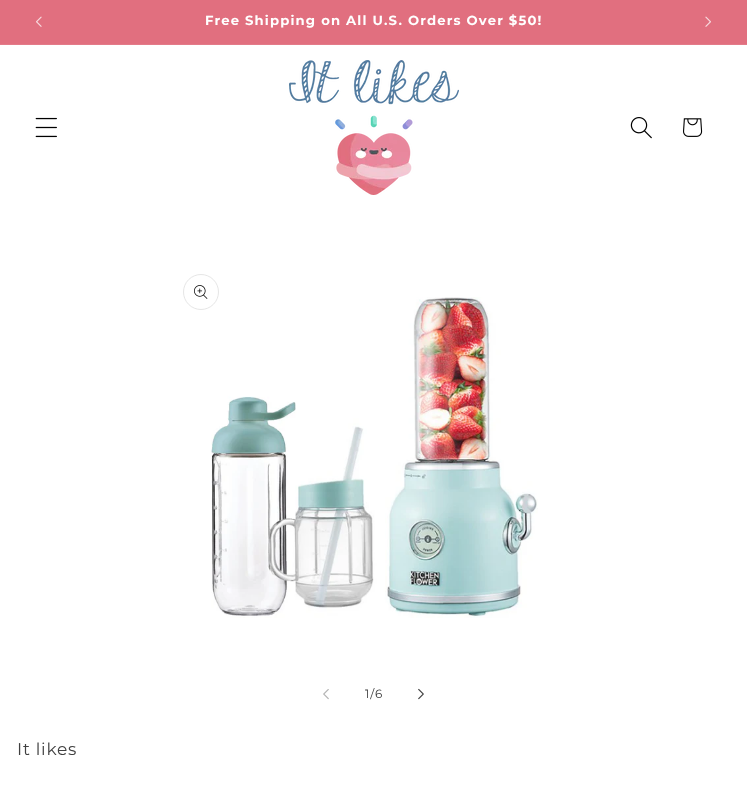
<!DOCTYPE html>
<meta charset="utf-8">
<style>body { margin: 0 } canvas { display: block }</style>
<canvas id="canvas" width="747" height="795"></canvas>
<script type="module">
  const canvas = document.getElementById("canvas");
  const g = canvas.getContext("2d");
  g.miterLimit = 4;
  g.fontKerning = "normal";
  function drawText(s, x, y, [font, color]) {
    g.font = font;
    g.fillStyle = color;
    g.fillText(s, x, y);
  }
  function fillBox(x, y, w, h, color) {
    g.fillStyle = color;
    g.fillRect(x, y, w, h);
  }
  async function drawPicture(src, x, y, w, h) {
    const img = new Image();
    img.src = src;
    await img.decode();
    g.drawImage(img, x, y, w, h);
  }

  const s1 = ["bold 13.2px Montserrat", "#FFFFFF"];
  const s2 = ["12px Montserrat", "#404040"];
  const s3 = ["17px Montserrat", "#404040"];

  fillBox(0, 0, 747, 795, "#FFFFFF");
  fillBox(0, 0, 747, 44, "#E16F7F");
  fillBox(0, 44, 747, 1, "#E37B89");
  await drawPicture("pic1.png", 36, 16, 6, 11);
  g.letterSpacing = "1.15px";
  drawText("Free Shipping on All U.S. Orders Over $50!", 205, 25, s1);
  await drawPicture("pic2.png", 705, 16, 6, 11);
  await drawPicture("pic3.png", 35, 117, 22, 21);
  await drawPicture("pic4.png", 289, 60, 170, 135);
  await drawPicture("pic5.png", 630, 117, 22, 22);
  await drawPicture("pic6.png", 683, 118, 20, 19);
  await drawPicture("pic8.png", 211, 297, 327, 321);
  g.beginPath();
  g.arc(201, 292, 17.5, 0, Math.PI * 2);
  g.strokeStyle = "#E6E6E6";
  g.stroke();
  await drawPicture("pic7.png", 194, 285, 14, 14);
  await drawPicture("pic9.png", 323, 689, 6, 11);
  g.letterSpacing = "1px";
  drawText("1/6", 365, 698, s2);
  await drawPicture("pic10.png", 418, 688, 6, 12);
  g.letterSpacing = "0.75px";
  drawText("It likes", 17, 755, s3);
</script>
